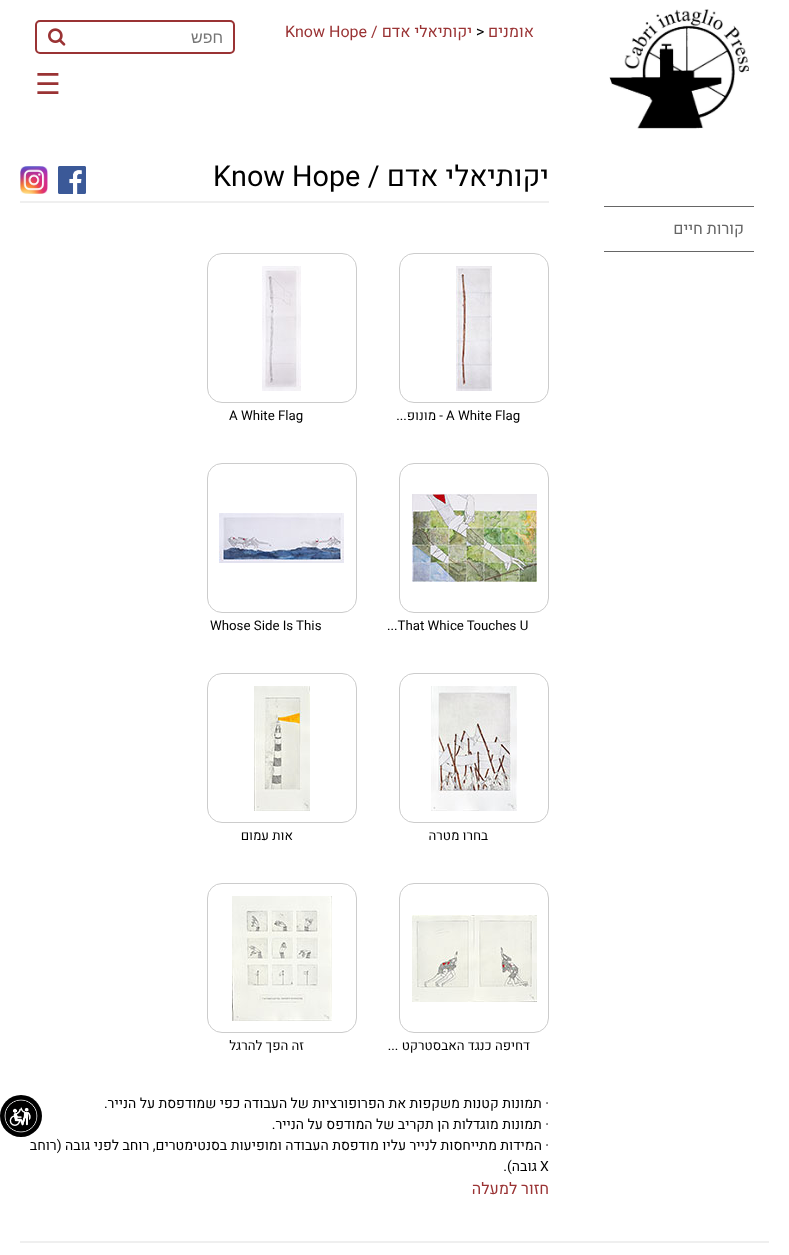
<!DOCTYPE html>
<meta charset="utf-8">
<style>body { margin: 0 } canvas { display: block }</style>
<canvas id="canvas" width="789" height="1255"></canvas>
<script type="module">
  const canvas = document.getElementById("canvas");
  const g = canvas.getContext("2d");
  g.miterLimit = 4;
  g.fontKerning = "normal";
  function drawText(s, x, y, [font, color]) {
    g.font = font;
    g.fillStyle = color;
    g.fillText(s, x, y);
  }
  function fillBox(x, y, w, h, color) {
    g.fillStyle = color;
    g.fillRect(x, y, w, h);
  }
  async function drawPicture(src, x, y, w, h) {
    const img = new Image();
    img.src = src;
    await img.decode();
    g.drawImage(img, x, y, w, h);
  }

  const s1 = ["16px Heebo", "#9A3334"];
  const s2 = ["16px Heebo", "#000000"];
  const s3 = ["16px Liberation Sans", "#757575"];
  const s4 = ["28.75px DejaVu Sans", "#9A3334"];
  const s5 = ["16px Heebo", "#666666"];
  const s6 = ["28.75px Heebo", "#000000"];
  const s7 = ["13.25px Heebo", "#000000"];
  const s8 = ["14px Heebo", "#000000"];

  fillBox(0, 0, 789, 1255, "#FFFFFF");
  await drawPicture("pic1.png", 609, 9, 140, 120);
  g.direction = "rtl";
  drawText("אומנים", 534, 37, s1);
  g.direction = "ltr";
  drawText(">", 476, 37, s2);
  g.direction = "rtl";
  drawText("יקותיאלי אדם /", 472, 37, s1);
  g.direction = "ltr";
  drawText("Know Hope", 285, 37, s1);
  g.beginPath();
  g.roundRect(36, 21, 198, 32, 4);
  g.strokeStyle = "#9A3334";
  g.lineWidth = 2;
  g.stroke();
  g.direction = "rtl";
  drawText("חפש", 223, 43, s3);
  await drawPicture("pic2.png", 48, 28, 18, 18);
  g.direction = "ltr";
  drawText("☰", 35, 94, s4);
  fillBox(604, 206, 150, 1, "#666666");
  fillBox(604, 251, 150, 1, "#666666");
  g.direction = "rtl";
  drawText("קורות חיים", 744, 234, s5);
  drawText("יקותיאלי אדם /", 549, 186, s6);
  g.direction = "ltr";
  drawText("Know Hope", 213, 186, s6);
  await drawPicture("pic3.png", 58, 166, 28, 28);
  await drawPicture("pic4.png", 20, 166, 28, 28);
  fillBox(20, 201, 529, 2, "#EFEFEF");
  g.beginPath();
  g.roundRect(399.5, 253.5, 149, 149, 14.5);
  g.strokeStyle = "#CCCCCC";
  g.lineWidth = 1;
  g.stroke();
  await drawPicture("pic5.png", 456, 266, 36, 125);
  drawText("A White Flag", 446, 420, s7);
  g.direction = "rtl";
  drawText("- מונופ...", 443, 420, s7);
  g.beginPath();
  g.roundRect(207.5, 253.5, 149, 149, 14.5);
  g.stroke();
  await drawPicture("pic6.png", 262, 266, 39, 125);
  g.direction = "ltr";
  drawText("A White Flag", 229, 420, s7);
  g.beginPath();
  g.roundRect(399.5, 463.5, 149, 149, 14.5);
  g.stroke();
  await drawPicture("pic7.png", 412, 494, 125, 88);
  drawText("...That Whice Touches U", 387, 630, s7);
  g.beginPath();
  g.roundRect(207.5, 463.5, 149, 149, 14.5);
  g.stroke();
  await drawPicture("pic8.png", 219, 513, 125, 50);
  drawText("Whose Side Is This", 210, 630, s7);
  g.beginPath();
  g.roundRect(399.5, 673.5, 149, 149, 14.5);
  g.stroke();
  await drawPicture("pic9.png", 431, 686, 86, 125);
  g.direction = "rtl";
  drawText("בחרו מטרה", 488, 840, s7);
  g.beginPath();
  g.roundRect(207.5, 673.5, 149, 149, 14.5);
  g.stroke();
  await drawPicture("pic10.png", 254, 686, 56, 125);
  drawText("אות עמום", 293, 840, s7);
  g.beginPath();
  g.roundRect(399.5, 883.5, 149, 149, 14.5);
  g.stroke();
  await drawPicture("pic11.png", 412, 915, 125, 87);
  drawText("דחיפה כנגד האבסטרקט ...", 530, 1050, s7);
  g.beginPath();
  g.roundRect(207.5, 883.5, 149, 149, 14.5);
  g.stroke();
  await drawPicture("pic12.png", 232, 896, 100, 125);
  drawText("זה הפך להרגל", 304, 1050, s7);
  drawText("· תמונות קטנות משקפות את הפרופורציות של העבודה כפי שמודפסת על הנייר.", 549, 1108, s8);
  drawText("· תמונות מוגדלות הן תקריב של המודפס על הנייר.", 549, 1129, s8);
  drawText("· המידות מתייחסות לנייר עליו מודפסת העבודה ומופיעות בסנטימטרים, רוחב לפני גובה (רוחב", 549, 1150, s8);
  g.direction = "ltr";
  drawText("X", 540, 1171, s8);
  g.direction = "rtl";
  drawText("גובה).", 537, 1171, s8);
  drawText("חזור למעלה", 549, 1194, s1);
  fillBox(20, 1241, 749, 2, "#EFEFEF");
  g.fillStyle = "#000000";
  g.beginPath();
  g.arc(21, 1116, 21, 0, Math.PI * 2);
  g.fill();
  await drawPicture("pic13.png", 4, 1099, 34, 34);
</script>
